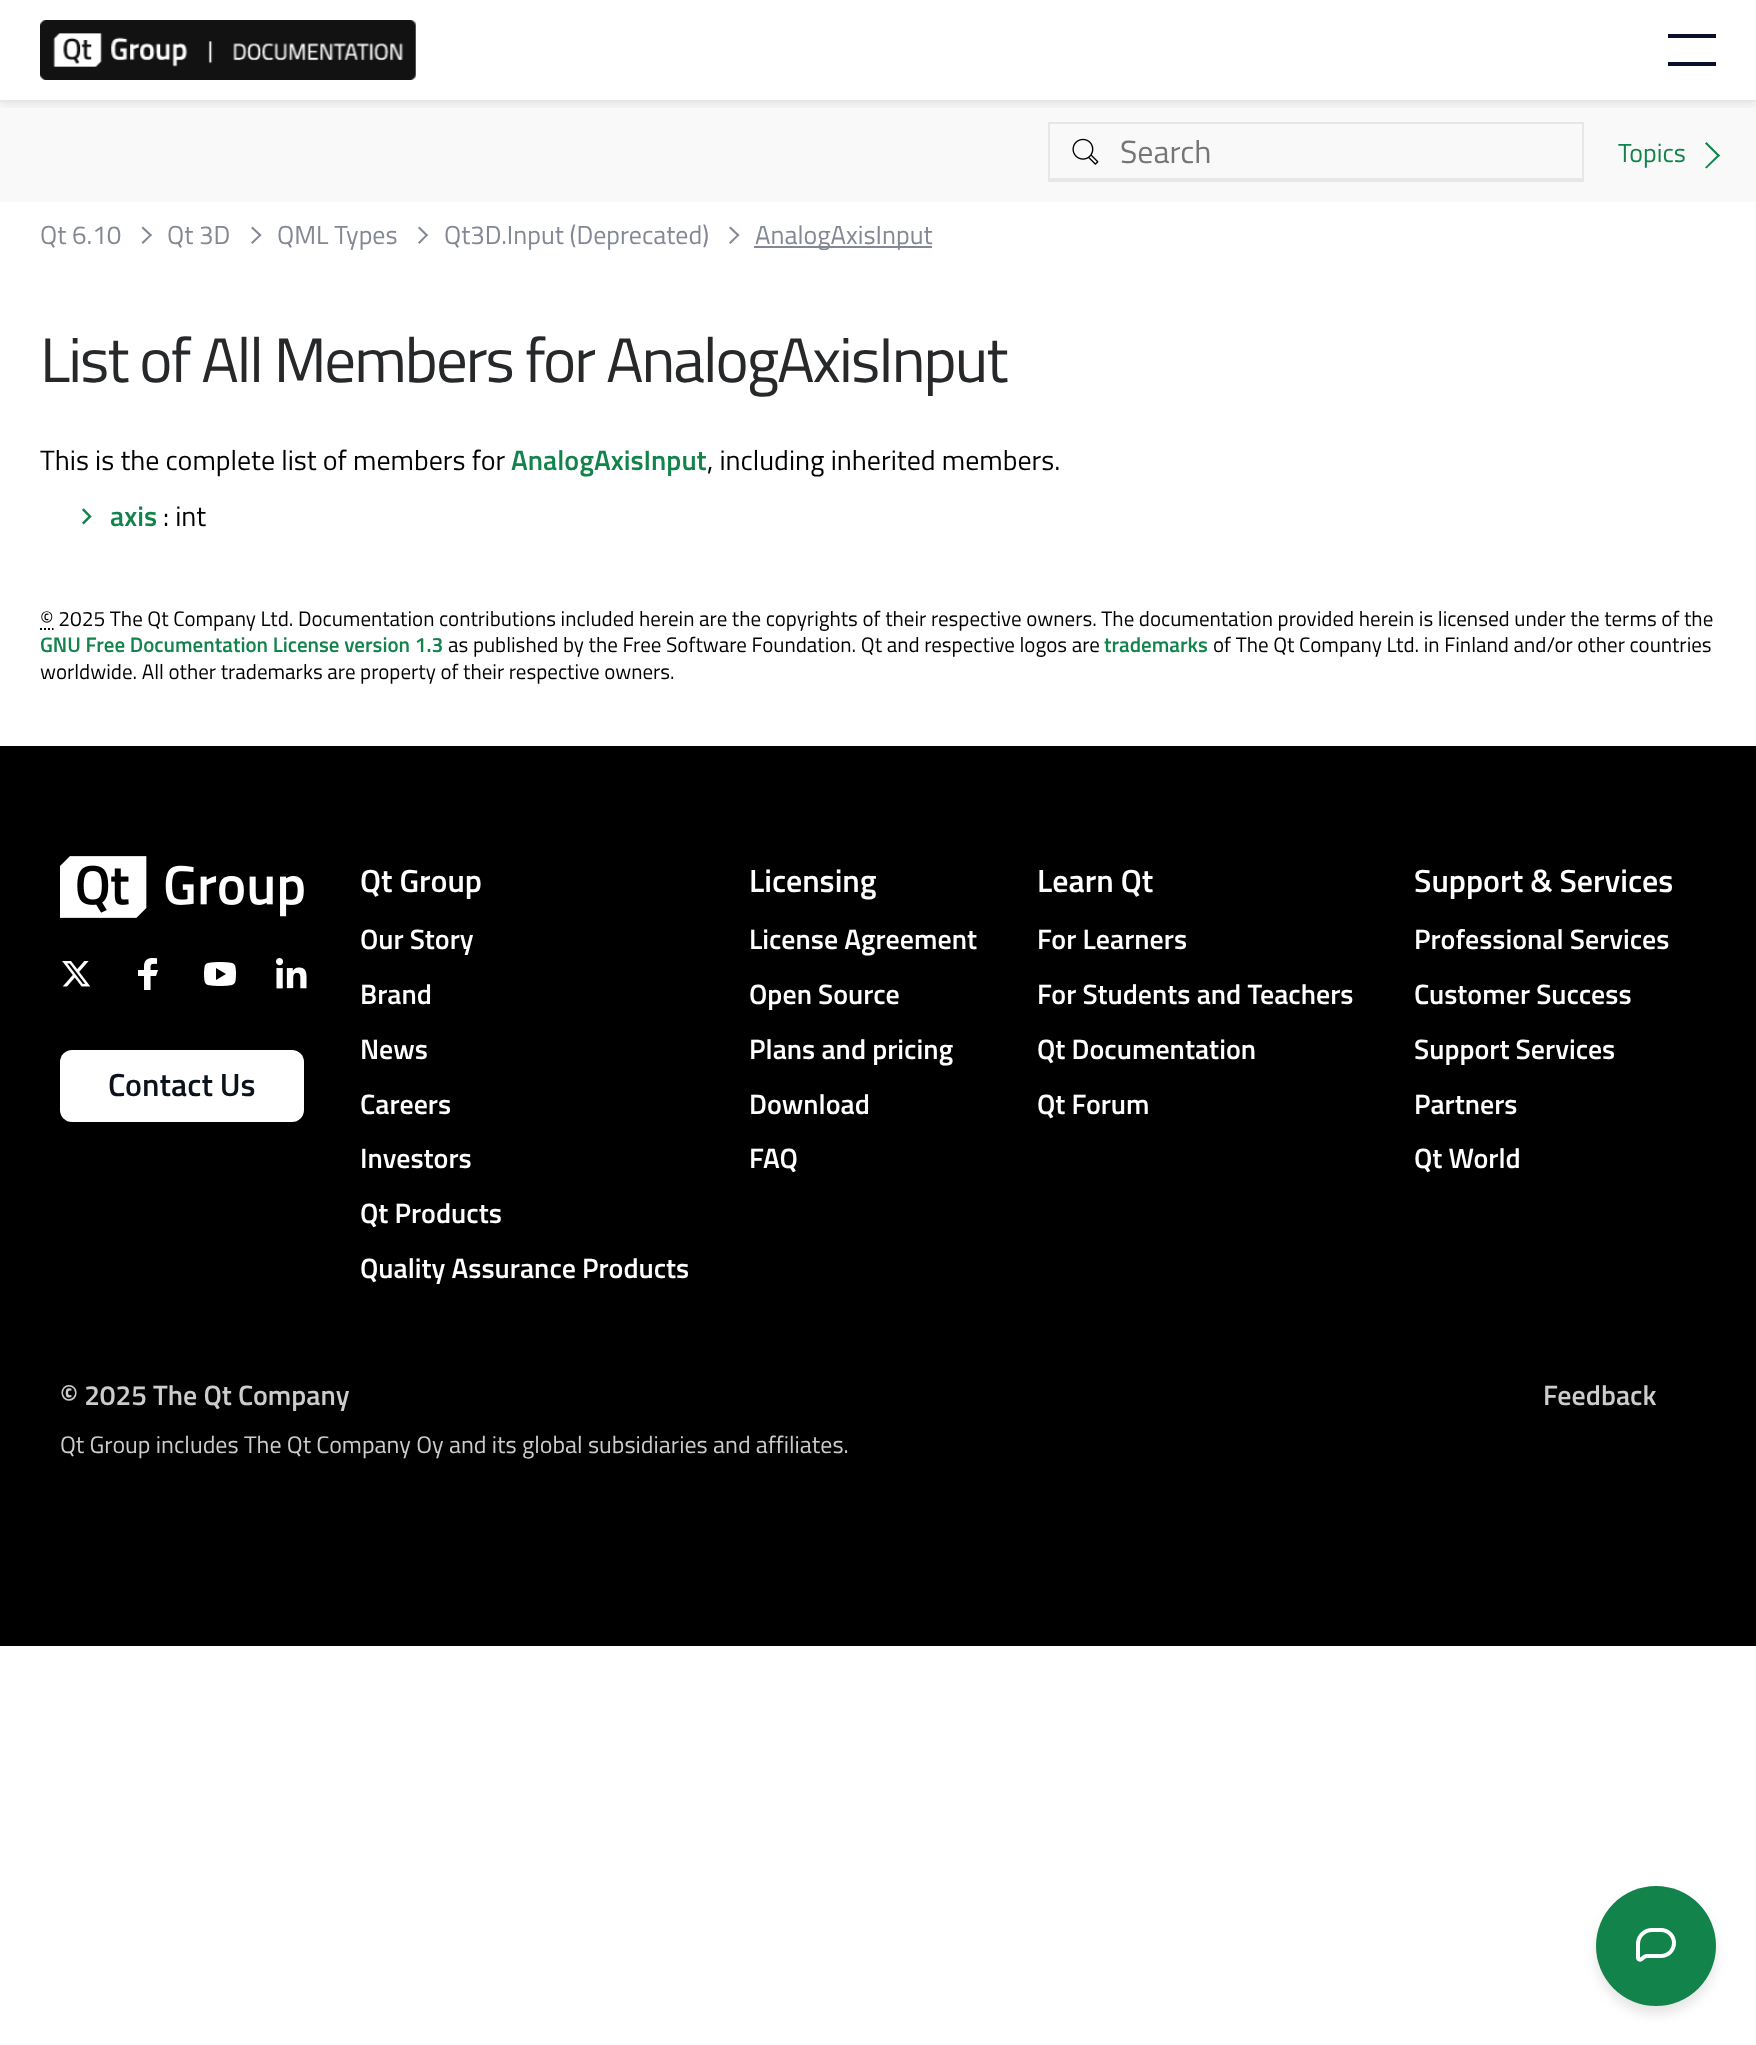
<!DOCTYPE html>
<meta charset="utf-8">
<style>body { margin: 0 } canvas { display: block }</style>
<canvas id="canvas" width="1756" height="2045"></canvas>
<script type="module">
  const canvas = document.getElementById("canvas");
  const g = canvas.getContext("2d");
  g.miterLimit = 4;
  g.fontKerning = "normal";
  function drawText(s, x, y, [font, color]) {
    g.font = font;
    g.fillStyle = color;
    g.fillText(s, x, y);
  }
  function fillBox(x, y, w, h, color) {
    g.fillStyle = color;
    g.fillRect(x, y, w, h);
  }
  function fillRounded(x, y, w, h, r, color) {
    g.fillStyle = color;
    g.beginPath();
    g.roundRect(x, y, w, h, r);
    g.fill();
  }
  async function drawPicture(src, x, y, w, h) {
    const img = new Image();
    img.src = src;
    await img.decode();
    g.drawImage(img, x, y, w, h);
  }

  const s1 = ["32px Titillium Web", "#757575"];
  const s2 = ["26px Titillium Web", "#848895"];
  const s3 = ["63px Titillium Web", "#26282A"];
  const s4 = ["28px Titillium Web", "#000000"];
  const s5 = ["600 28px Titillium Web", "#12834B"];
  const s6 = ["21px Titillium Web", "#000000"];
  const s7 = ["600 21px Titillium Web", "#12834B"];
  const s8 = ["26px Titillium Web", "#12834B"];
  const s9 = ["600 32px Titillium Web", "#0C121C"];
  const s10 = ["600 32px Titillium Web", "#FFFFFF"];
  const s11 = ["600 28px Titillium Web", "#FFFFFF"];
  const s12 = ["600 28px Titillium Web", "#CCCCCC"];
  const s13 = ["24px Titillium Web", "#CCCCCC"];

  fillBox(0, 0, 1756, 2045, "#FFFFFF");
  fillBox(0, 102, 1756, 100, "#F9F9F9");
  g.save();
  g.beginPath();
  g.rect(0, 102, 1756, 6);
  g.clip();
  g.fillStyle = "rgba(9, 16, 43, 0.1)";
  g.filter = "blur(5px)";
  g.beginPath();
  g.rect(0, 2, 1756, 102);
  g.fill();
  g.filter = "none";
  g.restore();
  fillBox(0, 100, 1756, 2, "#E8E8E8");
  await drawPicture("pic1.png", 40, 20, 376, 60);
  fillBox(1668, 34, 48, 4, "#09102B");
  fillBox(1668, 62, 48, 4, "#09102B");
  await drawPicture("pic2.png", 1072, 138, 27, 27);
  fillBox(1048, 122, 536, 2, "#E6E7E9");
  fillBox(1582, 122, 2, 60, "#E6E7E9");
  fillBox(1048, 178, 536, 4, "#E6E7E9");
  fillBox(1048, 122, 2, 60, "#E6E7E9");
  drawText("Search", 1120, 163, s1);
  drawText("Qt 6.10", 40, 244, s2);
  g.beginPath();
  g.moveTo(141.5, 228);
  g.lineTo(143, 226.5);
  g.lineTo(152, 235);
  g.lineTo(150.5, 236.5);
  g.closePath();
  g.fill();
  g.beginPath();
  g.moveTo(141.5, 242.5);
  g.lineTo(150.5, 234);
  g.lineTo(152, 235);
  g.lineTo(143, 244);
  g.closePath();
  g.fill();
  drawText("Qt 3D", 167, 244, s2);
  g.beginPath();
  g.moveTo(251, 228);
  g.lineTo(252.5, 226.5);
  g.lineTo(261.5, 235);
  g.lineTo(260, 236.5);
  g.closePath();
  g.fill();
  g.beginPath();
  g.moveTo(251, 242.5);
  g.lineTo(260, 234);
  g.lineTo(261.5, 235);
  g.lineTo(252.5, 244);
  g.closePath();
  g.fill();
  drawText("QML Types", 277, 244, s2);
  g.beginPath();
  g.moveTo(418, 228);
  g.lineTo(419.5, 226.5);
  g.lineTo(428, 235);
  g.lineTo(426.5, 236.5);
  g.closePath();
  g.fill();
  g.beginPath();
  g.moveTo(418, 242.5);
  g.lineTo(426.5, 234);
  g.lineTo(428, 235);
  g.lineTo(419.5, 244);
  g.closePath();
  g.fill();
  drawText("Qt3D.Input (Deprecated)", 444, 244, s2);
  g.beginPath();
  g.moveTo(729, 228);
  g.lineTo(730.5, 226.5);
  g.lineTo(739.5, 235);
  g.lineTo(738, 236.5);
  g.closePath();
  g.fill();
  g.beginPath();
  g.moveTo(729, 242.5);
  g.lineTo(738, 234);
  g.lineTo(739.5, 235);
  g.lineTo(730.5, 244);
  g.closePath();
  g.fill();
  fillBox(754, 246, 178, 2, "#848895");
  drawText("AnalogAxisInput", 755, 244, s2);
  g.letterSpacing = "-2px";
  drawText("List of All Members for AnalogAxisInput", 40, 382, s3);
  g.letterSpacing = "0px";
  drawText("This is the complete list of members for", 40, 470, s4);
  drawText("AnalogAxisInput", 511, 470, s5);
  drawText(", including inherited members.", 707, 470, s4);
  await drawPicture("pic3.png", 82, 508, 10, 17);
  drawText("axis", 110, 526, s5);
  drawText(": int", 163, 526, s4);
  g.beginPath();
  g.moveTo(40, 629);
  g.lineTo(42, 629);
  g.moveTo(44, 629);
  g.lineTo(46, 629);
  g.moveTo(48, 629);
  g.lineTo(50, 629);
  g.moveTo(52, 629);
  g.lineTo(53.5, 629);
  g.strokeStyle = "#000000";
  g.lineWidth = 2;
  g.stroke();
  drawText("© 2025 The Qt Company Ltd. Documentation contributions included herein are the copyrights of their respective owners. The documentation provided herein is licensed under the terms of the", 40, 626, s6);
  drawText("GNU Free Documentation License version 1.3", 40, 652, s7);
  drawText("as published by the Free Software Foundation. Qt and respective logos are", 448, 652, s6);
  drawText("trademarks", 1104, 652, s7);
  drawText("of The Qt Company Ltd. in Finland and/or other countries", 1213, 652, s6);
  drawText("worldwide. All other trademarks are property of their respective owners.", 40, 679, s6);
  drawText("Topics", 1618, 162, s8);
  g.beginPath();
  g.moveTo(1705, 143.5);
  g.lineTo(1706.5, 142);
  g.lineTo(1720, 155.5);
  g.lineTo(1718.5, 157);
  g.closePath();
  g.fill();
  g.beginPath();
  g.moveTo(1705, 167.5);
  g.lineTo(1718.5, 154);
  g.lineTo(1720, 155.5);
  g.lineTo(1706.5, 168.5);
  g.closePath();
  g.fill();
  fillBox(0, 746, 1756, 900, "#000000");
  await drawPicture("pic4.png", 60, 856, 244, 62);
  await drawPicture("pic5.png", 62, 961, 29, 26);
  await drawPicture("pic6.png", 138, 958, 20, 32);
  await drawPicture("pic7.png", 204, 962, 32, 24);
  await drawPicture("pic8.png", 276, 958, 31, 31);
  fillRounded(60, 1050, 244, 72, 12, "#FFFFFF");
  drawText("Contact Us", 108, 1096, s9);
  drawText("Qt Group", 360, 892, s10);
  drawText("Our Story", 360, 949, s11);
  drawText("Brand", 360, 1004, s11);
  drawText("News", 360, 1059, s11);
  drawText("Careers", 360, 1114, s11);
  drawText("Investors", 360, 1168, s11);
  drawText("Qt Products", 360, 1223, s11);
  drawText("Quality Assurance Products", 360, 1278, s11);
  drawText("Licensing", 749, 892, s10);
  drawText("License Agreement", 749, 949, s11);
  drawText("Open Source", 749, 1004, s11);
  drawText("Plans and pricing", 749, 1059, s11);
  drawText("Download", 749, 1114, s11);
  drawText("FAQ", 749, 1168, s11);
  drawText("Learn Qt", 1037, 892, s10);
  drawText("For Learners", 1037, 949, s11);
  drawText("For Students and Teachers", 1037, 1004, s11);
  drawText("Qt Documentation", 1037, 1059, s11);
  drawText("Qt Forum", 1037, 1114, s11);
  drawText("Support & Services", 1414, 892, s10);
  drawText("Professional Services", 1414, 949, s11);
  drawText("Customer Success", 1414, 1004, s11);
  drawText("Support Services", 1414, 1059, s11);
  drawText("Partners", 1414, 1114, s11);
  drawText("Qt World", 1414, 1168, s11);
  drawText("© 2025 The Qt Company", 60, 1405, s12);
  drawText("Feedback", 1543, 1405, s12);
  drawText("Qt Group includes The Qt Company Oy and its global subsidiaries and affiliates.", 60, 1453, s13);
  g.fillStyle = "rgba(0, 0, 0, 0.1)";
  g.filter = "blur(6px)";
  g.beginPath();
  g.roundRect(1596, 1894, 120, 120, 60);
  g.fill();
  g.filter = "none";
  g.fillStyle = "#12834B";
  g.beginPath();
  g.arc(1656, 1946, 60, 0, Math.PI * 2);
  g.fill();
  await drawPicture("pic9.png", 1636, 1928, 40, 34);
</script>
